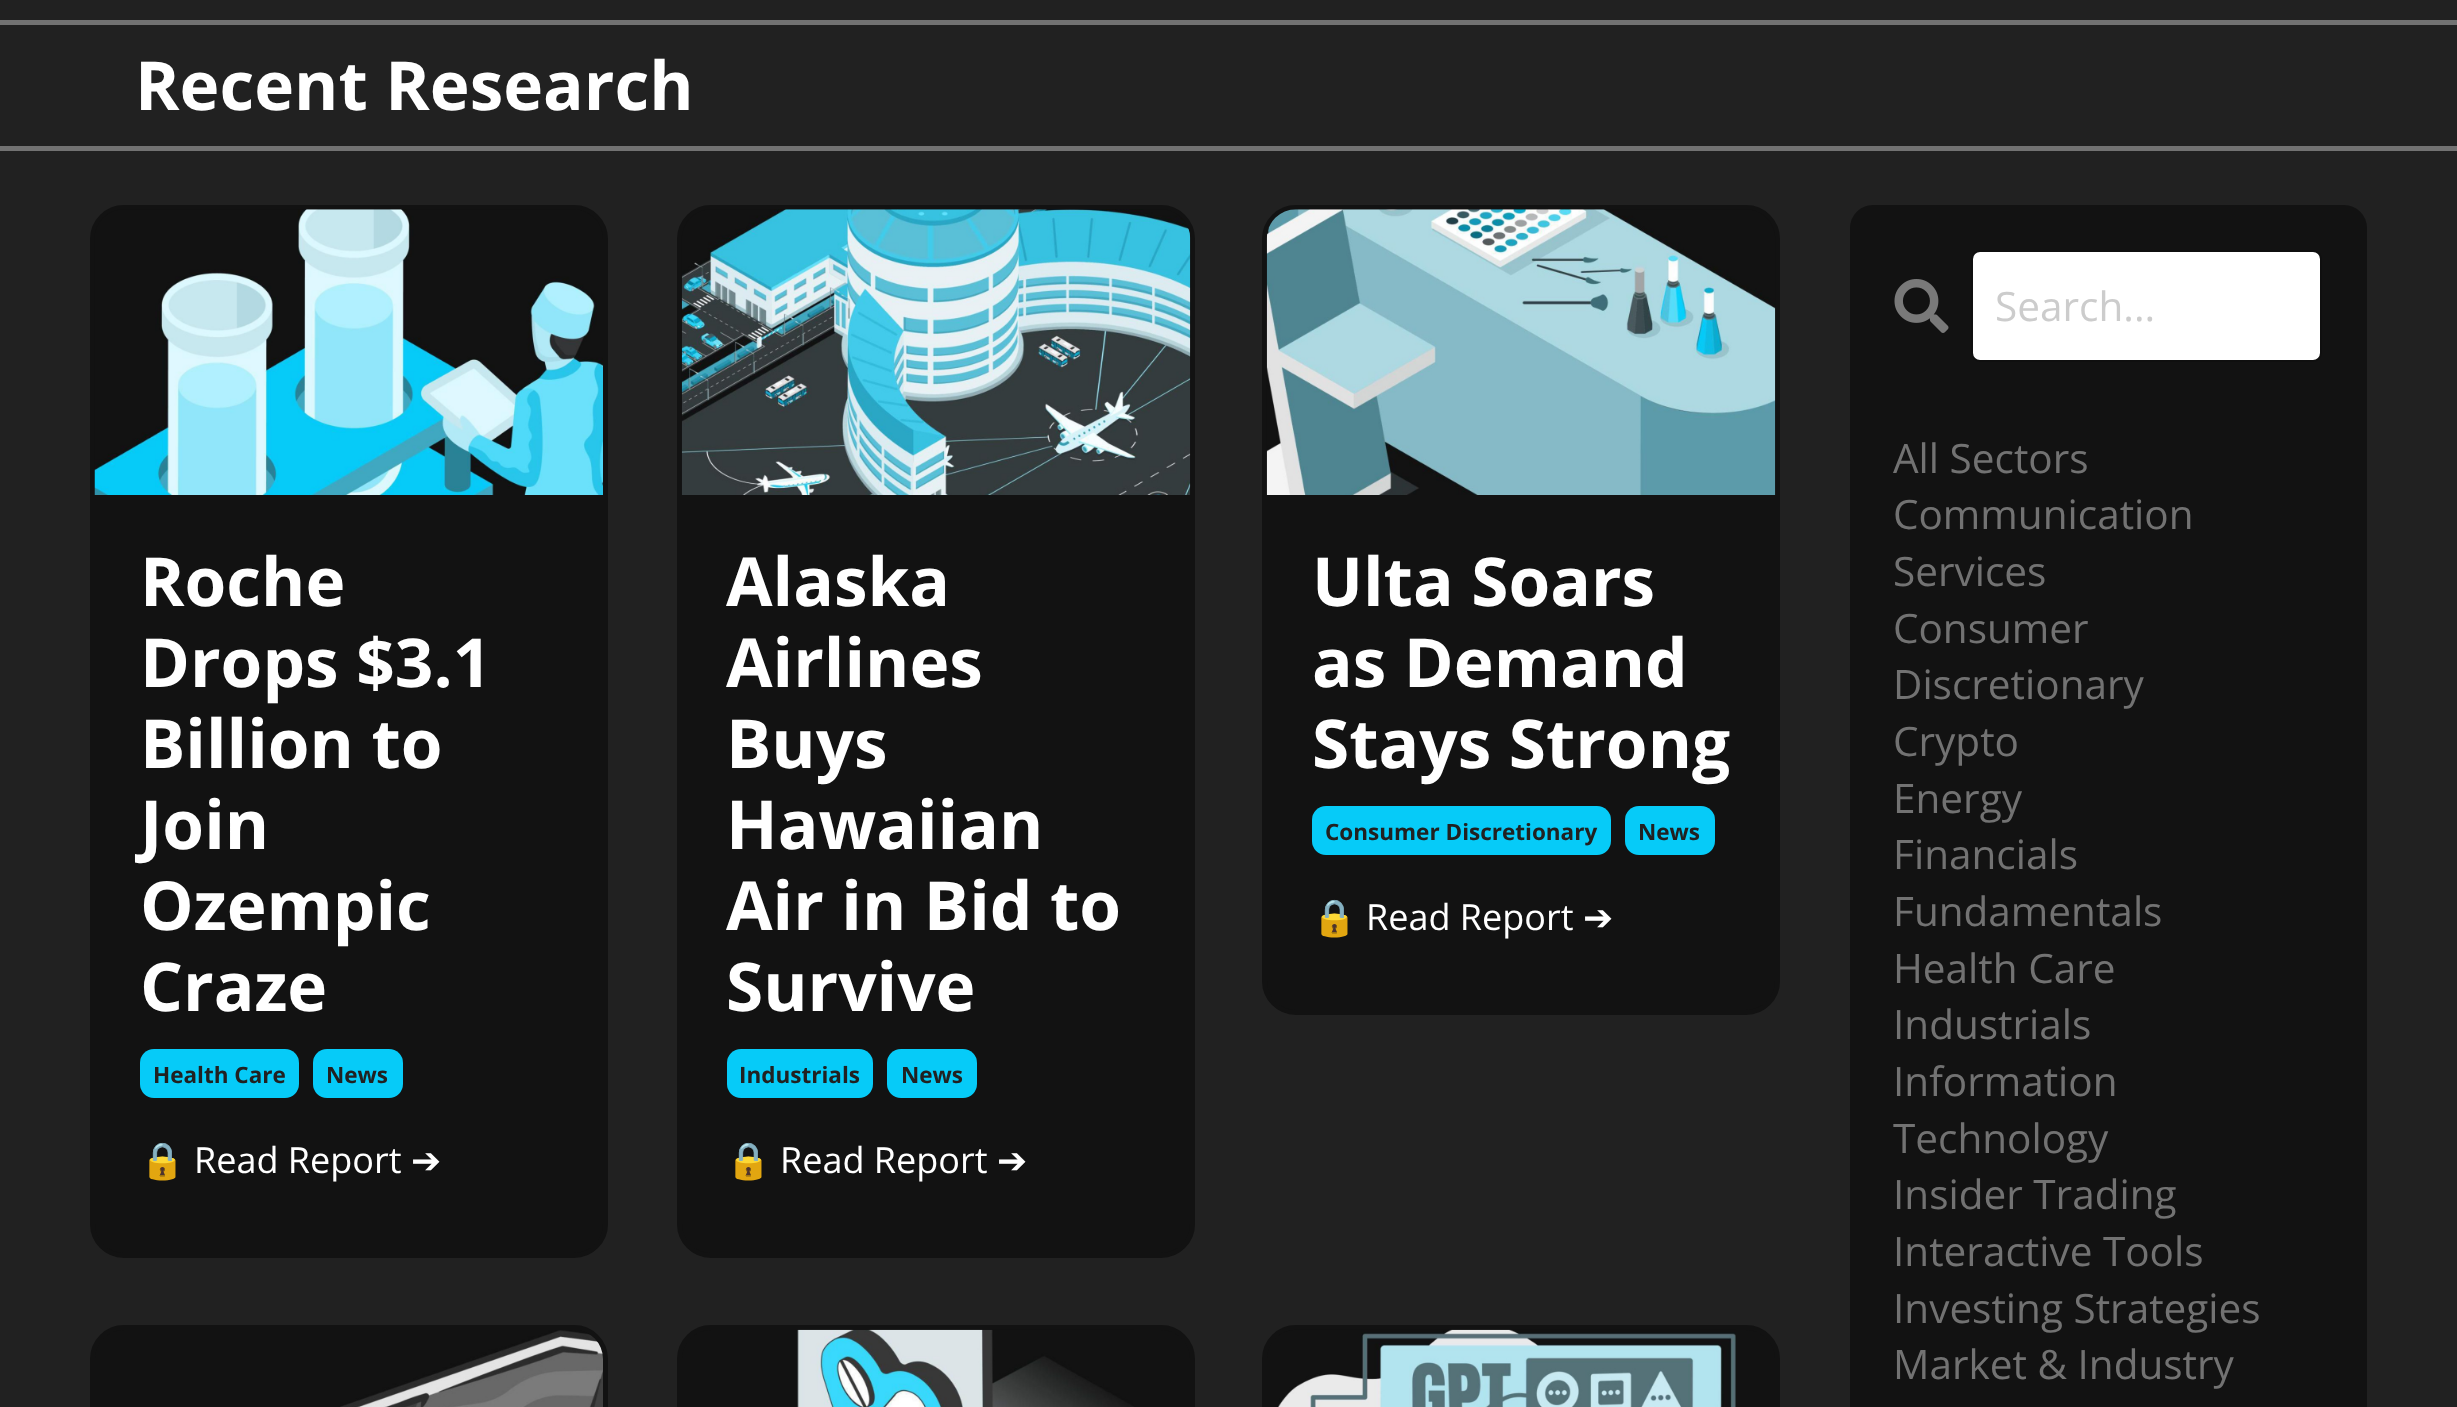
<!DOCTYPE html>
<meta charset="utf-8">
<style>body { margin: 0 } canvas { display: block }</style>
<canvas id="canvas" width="2457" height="1407"></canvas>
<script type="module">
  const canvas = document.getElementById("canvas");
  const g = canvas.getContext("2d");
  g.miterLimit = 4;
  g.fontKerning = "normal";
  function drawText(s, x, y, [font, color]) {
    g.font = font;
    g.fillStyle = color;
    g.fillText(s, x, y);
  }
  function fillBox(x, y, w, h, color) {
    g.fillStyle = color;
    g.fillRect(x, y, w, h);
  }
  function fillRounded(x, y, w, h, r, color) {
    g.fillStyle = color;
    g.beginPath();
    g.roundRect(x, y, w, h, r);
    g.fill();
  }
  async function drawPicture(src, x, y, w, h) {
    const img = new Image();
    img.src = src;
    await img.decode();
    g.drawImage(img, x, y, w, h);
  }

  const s1 = ["bold 67.5px Open Sans", "#FFFFFF"];
  const s2 = ["bold 22.5px Open Sans", "#212121"];
  const s3 = ["36px Noto Color Emoji", "#FFFFFF"];
  const s4 = ["36px Open Sans", "#FFFFFF"];
  const s5 = ["36px DejaVu Sans", "#FFFFFF"];
  const s6 = ["40.5px Open Sans", "#CCCCCC"];
  const s7 = ["40.5px Open Sans", "#727272"];

  fillBox(0, 0, 2457, 1407, "#212121");
  fillBox(0, 20, 2457, 5, "#727272");
  drawText("Recent Research", 135, 110, s1);
  fillBox(0, 146, 2457, 5, "#727272");
  g.fillStyle = "#121212";
  g.beginPath();
  g.roundRect(92.5, 207.5, 513, 1048, 31.5);
  g.fill();
  g.strokeStyle = "#121212";
  g.lineWidth = 5;
  g.stroke();
  await drawPicture("pic1.png", 94, 209, 509, 286);
  drawText("Roche", 140, 606, s1);
  drawText("Drops $3.1", 140, 687, s1);
  drawText("Billion to", 140, 768, s1);
  drawText("Join", 140, 849, s1);
  drawText("Ozempic", 140, 930, s1);
  drawText("Craze", 140, 1011, s1);
  fillRounded(140, 1049, 159, 49, 14, "#06CBF8");
  drawText("Health Care", 153, 1083, s2);
  fillRounded(313, 1049, 90, 49, 14, "#06CBF8");
  drawText("News", 326, 1083, s2);
  drawText("🔒", 140, 1173, s3);
  drawText("Read Report", 194, 1173, s4);
  drawText("➔", 411, 1173, s5);
  g.fillStyle = "#121212";
  g.beginPath();
  g.roundRect(679.5, 207.5, 513, 1048, 31.5);
  g.fill();
  g.stroke();
  await drawPicture("pic2.png", 681, 209, 510, 286);
  drawText("Alaska", 726, 606, s1);
  drawText("Airlines", 726, 687, s1);
  drawText("Buys", 726, 768, s1);
  drawText("Hawaiian", 726, 849, s1);
  drawText("Air in Bid to", 726, 930, s1);
  drawText("Survive", 726, 1011, s1);
  fillRounded(727, 1049, 146, 49, 14, "#06CBF8");
  drawText("Industrials", 739, 1083, s2);
  fillRounded(887, 1049, 90, 49, 14, "#06CBF8");
  drawText("News", 901, 1083, s2);
  drawText("🔒", 726, 1173, s3);
  drawText("Read Report", 780, 1173, s4);
  drawText("➔", 997, 1173, s5);
  g.fillStyle = "#121212";
  g.beginPath();
  g.roundRect(1264.5, 207.5, 513, 805, 31.5);
  g.fill();
  g.stroke();
  await drawPicture("pic3.png", 1266, 209, 510, 286);
  drawText("Ulta Soars", 1312, 606, s1);
  drawText("as Demand", 1312, 687, s1);
  drawText("Stays Strong", 1312, 768, s1);
  fillRounded(1312, 806, 299, 49, 14, "#06CBF8");
  drawText("Consumer Discretionary", 1325, 840, s2);
  fillRounded(1625, 806, 90, 49, 14, "#06CBF8");
  drawText("News", 1638, 840, s2);
  drawText("🔒", 1312, 930, s3);
  drawText("Read Report", 1366, 930, s4);
  drawText("➔", 1583, 930, s5);
  g.fillStyle = "#121212";
  g.beginPath();
  g.roundRect(92.5, 1327.5, 513, 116, 31.5);
  g.fill();
  g.stroke();
  await drawPicture("pic4.png", 340, 1330, 263, 77);
  g.beginPath();
  g.roundRect(679.5, 1327.5, 513, 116, 31.5);
  g.fill();
  g.stroke();
  await drawPicture("pic5.png", 797, 1329, 337, 78);
  g.beginPath();
  g.roundRect(1264.5, 1327.5, 513, 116, 31.5);
  g.fill();
  g.stroke();
  await drawPicture("pic6.png", 1278, 1329, 458, 78);
  fillRounded(1850, 205, 517, 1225, 23, "#121212");
  await drawPicture("pic7.png", 1894, 279, 55, 54);
  fillRounded(1973, 252, 347, 108, 7, "#FFFFFF");
  g.beginPath();
  g.roundRect(1972, 251, 349, 110, 8);
  g.strokeStyle = "rgba(0, 0, 0, 0.15)";
  g.lineWidth = 2;
  g.stroke();
  drawText("Search...", 1995, 321, s6);
  drawText("All Sectors", 1893, 473, s7);
  drawText("Communication", 1893, 529, s7);
  drawText("Services", 1893, 586, s7);
  drawText("Consumer", 1893, 643, s7);
  drawText("Discretionary", 1893, 699, s7);
  drawText("Crypto", 1893, 756, s7);
  drawText("Energy", 1893, 813, s7);
  drawText("Financials", 1893, 869, s7);
  drawText("Fundamentals", 1893, 926, s7);
  drawText("Health Care", 1893, 983, s7);
  drawText("Industrials", 1893, 1039, s7);
  drawText("Information", 1893, 1096, s7);
  drawText("Technology", 1893, 1153, s7);
  drawText("Insider Trading", 1893, 1209, s7);
  drawText("Interactive Tools", 1893, 1266, s7);
  drawText("Investing Strategies", 1893, 1323, s7);
  drawText("Market & Industry", 1893, 1379, s7);
</script>
